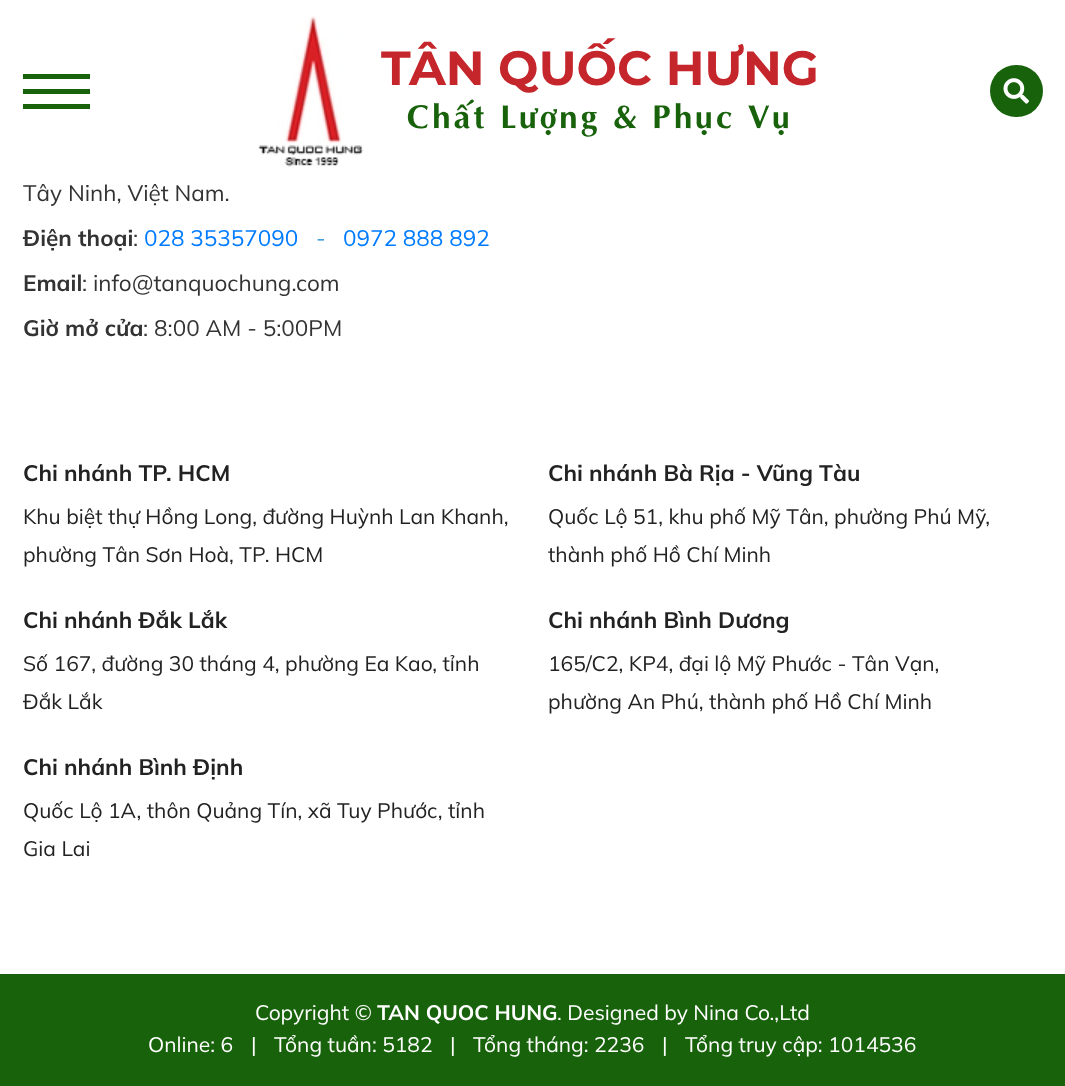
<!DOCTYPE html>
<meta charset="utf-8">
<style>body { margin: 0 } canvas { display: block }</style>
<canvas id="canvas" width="1065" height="1086"></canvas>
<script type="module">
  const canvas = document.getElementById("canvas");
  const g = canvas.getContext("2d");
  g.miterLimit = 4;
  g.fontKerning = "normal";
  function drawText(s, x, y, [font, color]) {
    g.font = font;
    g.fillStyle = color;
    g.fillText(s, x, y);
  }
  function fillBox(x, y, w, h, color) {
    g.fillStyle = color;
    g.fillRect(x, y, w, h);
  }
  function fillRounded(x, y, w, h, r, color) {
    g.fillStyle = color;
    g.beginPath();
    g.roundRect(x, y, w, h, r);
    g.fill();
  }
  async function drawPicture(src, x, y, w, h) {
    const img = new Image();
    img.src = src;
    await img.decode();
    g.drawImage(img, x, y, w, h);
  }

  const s1 = ["bold 48px Montserrat", "#C5262B"];
  const s2 = ["bold 33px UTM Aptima", "#18620B"];
  const s3 = ["22.5px Mulish", "#333333"];
  const s4 = ["bold 22.5px Mulish", "#333333"];
  const s5 = ["22.5px Mulish", "#007BFF"];
  const s6 = ["22.5px Mulish", "#3498DB"];
  const s7 = ["bold 22.5px Mulish", "#222222"];
  const s8 = ["21px Mulish", "#222222"];
  const s9 = ["21px Mulish", "#FFFFFF"];
  const s10 = ["bold 21px Mulish", "#FFFFFF"];

  fillBox(0, 0, 1065, 1086, "#FFFFFF");
  fillBox(23, 74, 67, 5, "#18620B");
  fillBox(23, 89, 67, 5, "#18620B");
  fillBox(23, 104, 67, 5, "#18620B");
  await drawPicture("pic1.png", 258, 16, 106, 151);
  drawText("TÂN QUỐC HƯNG", 381, 85, s1);
  g.letterSpacing = "3px";
  drawText("Chất Lượng & Phục Vụ", 407, 128, s2);
  fillRounded(990, 65, 53, 52, 26, "#18620B");
  await drawPicture("pic2.png", 1003, 78, 26, 26);
  g.letterSpacing = "0px";
  drawText("Tây Ninh, Việt Nam.", 23, 201, s3);
  drawText("Điện thoại", 23, 246, s4);
  drawText(":", 133, 246, s3);
  drawText("028 35357090", 144, 246, s5);
  drawText("-", 316, 246, s6);
  drawText("0972 888 892", 343, 246, s5);
  drawText("Email", 23, 291, s4);
  drawText(": info@tanquochung.com", 82, 291, s3);
  drawText("Giờ mở cửa", 23, 336, s4);
  drawText(": 8:00 AM - 5:00PM", 143, 336, s3);
  drawText("Chi nhánh TP. HCM", 23, 481, s7);
  drawText("Khu biệt thự Hồng Long, đường Huỳnh Lan Khanh,", 23, 524, s8);
  drawText("phường Tân Sơn Hoà, TP. HCM", 23, 562, s8);
  drawText("Chi nhánh Bà Rịa - Vũng Tàu", 548, 481, s7);
  drawText("Quốc Lộ 51, khu phố Mỹ Tân, phường Phú Mỹ,", 548, 524, s8);
  drawText("thành phố Hồ Chí Minh", 548, 562, s8);
  drawText("Chi nhánh Đắk Lắk", 23, 628, s7);
  drawText("Số 167, đường 30 tháng 4, phường Ea Kao, tỉnh", 23, 671, s8);
  drawText("Đắk Lắk", 23, 709, s8);
  drawText("Chi nhánh Bình Dương", 548, 628, s7);
  drawText("165/C2, KP4, đại lộ Mỹ Phước - Tân Vạn,", 548, 671, s8);
  drawText("phường An Phú, thành phố Hồ Chí Minh", 548, 709, s8);
  drawText("Chi nhánh Bình Định", 23, 775, s7);
  drawText("Quốc Lộ 1A, thôn Quảng Tín, xã Tuy Phước, tỉnh", 23, 818, s8);
  drawText("Gia Lai", 23, 856, s8);
  fillBox(0, 974, 1065, 112, "#18620B");
  drawText("Copyright ©", 255, 1020, s9);
  drawText("TAN QUOC HUNG", 377, 1020, s10);
  drawText(". Designed by Nina Co.,Ltd", 557, 1020, s9);
  drawText("Online: 6", 148, 1052, s9);
  drawText("|", 251, 1052, s9);
  drawText("Tổng tuần: 5182", 274, 1052, s9);
  drawText("|", 450, 1052, s9);
  drawText("Tổng tháng: 2236", 473, 1052, s9);
  drawText("|", 662, 1052, s9);
  drawText("Tổng truy cập: 1014536", 685, 1052, s9);
</script>
